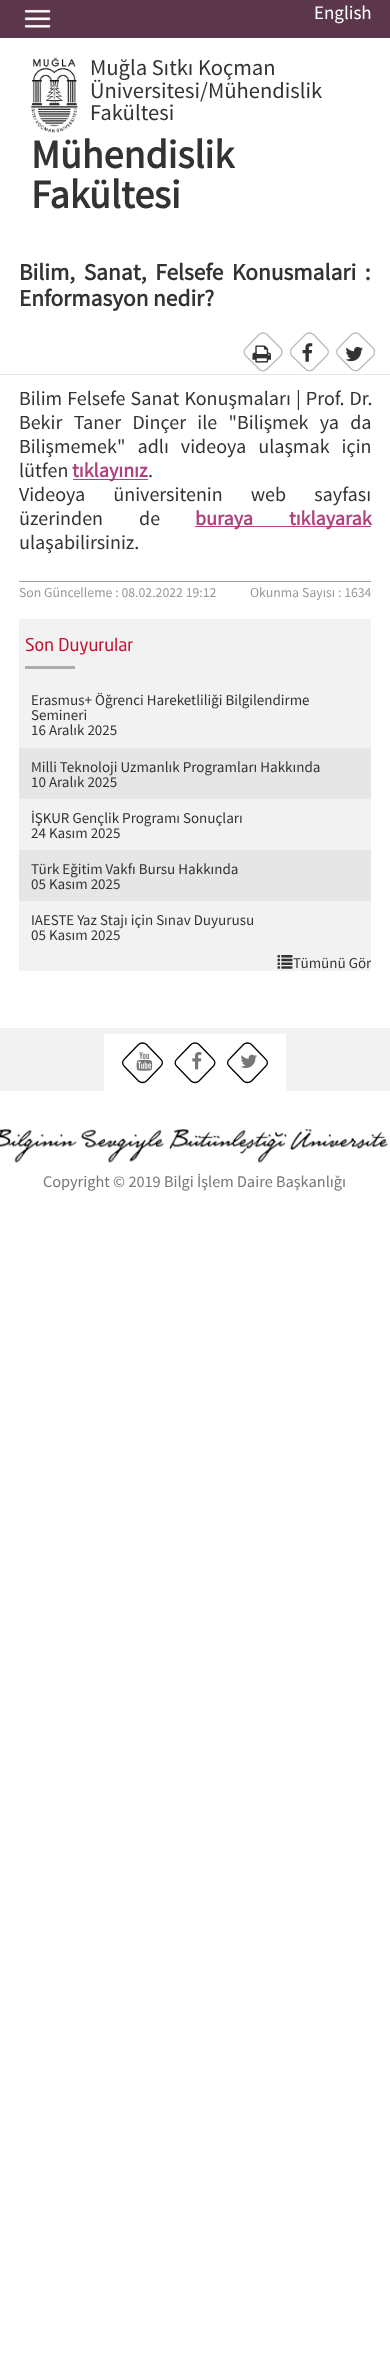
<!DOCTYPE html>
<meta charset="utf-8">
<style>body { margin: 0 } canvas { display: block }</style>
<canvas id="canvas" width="390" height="2355"></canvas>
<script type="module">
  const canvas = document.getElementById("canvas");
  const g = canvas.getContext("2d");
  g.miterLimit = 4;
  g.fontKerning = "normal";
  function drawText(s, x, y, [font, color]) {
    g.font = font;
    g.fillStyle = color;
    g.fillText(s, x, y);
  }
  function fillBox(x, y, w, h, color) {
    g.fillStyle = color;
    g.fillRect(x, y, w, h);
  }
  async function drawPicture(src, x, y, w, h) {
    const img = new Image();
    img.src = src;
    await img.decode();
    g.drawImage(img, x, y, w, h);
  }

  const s1 = ["19px Source Sans Pro", "#FFFFFF"];
  const s2 = ["22.5px Source Sans Pro", "#333333"];
  const s3 = ["bold 40px Source Sans Pro", "#333333"];
  const s4 = ["bold 23.3px Source Sans Pro", "#333333"];
  const s5 = ["20px Source Sans Pro", "#333333"];
  const s6 = ["bold 20px Source Sans Pro", "#AD427E"];
  const s7 = ["13.75px Source Sans Pro", "#999999"];
  const s8 = ["17.5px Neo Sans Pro", "#C51230"];
  const s9 = ["15px Source Sans Pro", "#333333"];
  const s10 = ["16.25px Source Sans Pro", "#777777"];

  fillBox(0, 0, 390, 2355, "#FFFFFF");
  fillBox(0, 0, 390, 38, "#5C374C");
  await drawPicture("pic1.png", 24, 9, 27, 19);
  drawText("English", 314, 19, s1);
  await drawPicture("pic2.png", 31, 57, 47, 76);
  drawText("Muğla Sıtkı Koçman", 90, 75, s2);
  drawText("Üniversitesi/Mühendislik", 90, 98, s2);
  drawText("Fakültesi", 90, 120, s2);
  drawText("Mühendislik", 31, 168, s3);
  drawText("Fakültesi", 31, 208, s3);
  fillBox(0, 374, 390, 1, "#E7E7E7");
  g.wordSpacing = "4px";
  drawText("Bilim, Sanat, Felsefe Konusmalari :", 19, 280, s4);
  g.wordSpacing = "0px";
  drawText("Enformasyon nedir?", 19, 306, s4);
  g.beginPath();
  g.moveTo(267, 334.5);
  g.lineTo(280.5, 348);
  g.bezierCurveTo(282.5, 350, 282.5, 353.5, 280.5, 356);
  g.lineTo(267, 369);
  g.bezierCurveTo(265, 371.5, 261.5, 371.5, 259, 369);
  g.lineTo(246, 356);
  g.bezierCurveTo(243.5, 353.5, 243.5, 350, 246, 348);
  g.lineTo(259, 334.5);
  g.bezierCurveTo(261.5, 332.5, 265, 332.5, 267, 334.5);
  g.closePath();
  g.strokeStyle = "#BBBBBB";
  g.lineWidth = 1.3;
  g.stroke();
  await drawPicture("pic3.png", 252, 345, 19, 18);
  g.beginPath();
  g.moveTo(313.5, 334.5);
  g.lineTo(326.5, 348);
  g.bezierCurveTo(329, 350, 329, 353.5, 326.5, 356);
  g.lineTo(313.5, 369);
  g.bezierCurveTo(311, 371.5, 307.5, 371.5, 305.5, 369);
  g.lineTo(292, 356);
  g.bezierCurveTo(290, 353.5, 290, 350, 292, 348);
  g.lineTo(305.5, 334.5);
  g.bezierCurveTo(307.5, 332.5, 311, 332.5, 313.5, 334.5);
  g.closePath();
  g.stroke();
  await drawPicture("pic4.png", 302, 343, 11, 19);
  g.beginPath();
  g.moveTo(359.5, 334.5);
  g.lineTo(373, 348);
  g.bezierCurveTo(375, 350, 375, 353.5, 373, 356);
  g.lineTo(359.5, 369);
  g.bezierCurveTo(357.5, 371.5, 354, 371.5, 351.5, 369);
  g.lineTo(338.5, 356);
  g.bezierCurveTo(336, 353.5, 336, 350, 338.5, 348);
  g.lineTo(351.5, 334.5);
  g.bezierCurveTo(354, 332.5, 357.5, 332.5, 359.5, 334.5);
  g.closePath();
  g.stroke();
  await drawPicture("pic5.png", 345, 346, 18, 16);
  g.wordSpacing = "1px";
  drawText("Bilim Felsefe Sanat Konuşmaları | Prof. Dr.", 19, 405, s5);
  g.wordSpacing = "7.25px";
  drawText("Bekir Taner Dinçer ile \"Bilişmek ya da", 19, 429, s5);
  g.wordSpacing = "8px";
  drawText("Bilişmemek\" adlı videoya ulaşmak için", 19, 453, s5);
  g.wordSpacing = "0px";
  drawText("lütfen", 19, 477, s5);
  fillBox(73, 479, 75, 1, "#AD427E");
  drawText("tıklayınız", 72, 477, s6);
  drawText(".", 148, 477, s5);
  g.wordSpacing = "24px";
  drawText("Videoya üniversitenin web sayfası", 19, 501, s5);
  g.wordSpacing = "32px";
  drawText("üzerinden de", 19, 525, s5);
  fillBox(195, 526, 176, 1, "#AD427E");
  drawText("buraya tıklayarak", 195, 525, s6);
  g.wordSpacing = "0px";
  drawText("ulaşabilirsiniz.", 19, 549, s5);
  fillBox(19, 581, 352, 1, "#A0A0A0");
  drawText("Son Güncelleme : 08.02.2022 19:12", 19, 597, s7);
  drawText("Okunma Sayısı : 1634", 250, 597, s7);
  fillBox(19, 619, 352, 352, "#F2F2F2");
  drawText("Son Duyurular", 25, 651, s8);
  fillBox(25, 666, 50, 3, "#ACACAC");
  drawText("Erasmus+ Öğrenci Hareketliliği Bilgilendirme", 31, 705, s9);
  drawText("Semineri", 31, 720, s9);
  drawText("16 Aralık 2025", 31, 735, s9);
  fillBox(19, 748, 352, 51, "#E6E6E6");
  drawText("Milli Teknoloji Uzmanlık Programları Hakkında", 31, 772, s9);
  drawText("10 Aralık 2025", 31, 787, s9);
  drawText("İŞKUR Gençlik Programı Sonuçları", 31, 823, s9);
  drawText("24 Kasım 2025", 31, 838, s9);
  fillBox(19, 850, 352, 51, "#E6E6E6");
  drawText("Türk Eğitim Vakfı Bursu Hakkında", 31, 874, s9);
  drawText("05 Kasım 2025", 31, 889, s9);
  drawText("IAESTE Yaz Stajı için Sınav Duyurusu", 31, 925, s9);
  drawText("05 Kasım 2025", 31, 940, s9);
  await drawPicture("pic6.png", 277, 955, 16, 14);
  drawText("Tümünü Gör", 293, 968, s9);
  fillBox(0, 1028, 390, 63, "#F2F2F2");
  fillBox(104, 1034, 182, 57, "#FFFFFF");
  g.beginPath();
  g.moveTo(146.5, 1044.5);
  g.lineTo(160.5, 1059);
  g.bezierCurveTo(163, 1061, 163, 1064.5, 160.5, 1066.5);
  g.lineTo(146.5, 1081);
  g.bezierCurveTo(144.5, 1083, 140.5, 1083, 138.5, 1081);
  g.lineTo(124.5, 1066.5);
  g.bezierCurveTo(122, 1064.5, 122, 1061, 124.5, 1059);
  g.lineTo(138.5, 1044.5);
  g.bezierCurveTo(140.5, 1042.5, 144.5, 1042.5, 146.5, 1044.5);
  g.closePath();
  g.strokeStyle = "#000000";
  g.stroke();
  await drawPicture("pic7.png", 136, 1052, 17, 19);
  g.beginPath();
  g.moveTo(199, 1044.5);
  g.lineTo(213, 1059);
  g.bezierCurveTo(215.5, 1061, 215.5, 1064.5, 213, 1066.5);
  g.lineTo(199, 1081);
  g.bezierCurveTo(197, 1083, 193, 1083, 191, 1081);
  g.lineTo(177, 1066.5);
  g.bezierCurveTo(174.5, 1064.5, 174.5, 1061, 177, 1059);
  g.lineTo(191, 1044.5);
  g.bezierCurveTo(193, 1042.5, 197, 1042.5, 199, 1044.5);
  g.closePath();
  g.stroke();
  await drawPicture("pic8.png", 192, 1052, 10, 18);
  g.beginPath();
  g.moveTo(251.5, 1044.5);
  g.lineTo(265.5, 1059);
  g.bezierCurveTo(268, 1061, 268, 1064.5, 265.5, 1066.5);
  g.lineTo(251.5, 1081);
  g.bezierCurveTo(249.5, 1083, 245.5, 1083, 243.5, 1081);
  g.lineTo(229.5, 1066.5);
  g.bezierCurveTo(227, 1064.5, 227, 1061, 229.5, 1059);
  g.lineTo(243.5, 1044.5);
  g.bezierCurveTo(245.5, 1042.5, 249.5, 1042.5, 251.5, 1044.5);
  g.closePath();
  g.stroke();
  await drawPicture("pic9.png", 240, 1054, 17, 15);
  await drawPicture("pic10.png", 0, 1129, 389, 34);
  drawText("Copyright © 2019 Bilgi İşlem Daire Başkanlığı", 43, 1187, s10);
</script>
